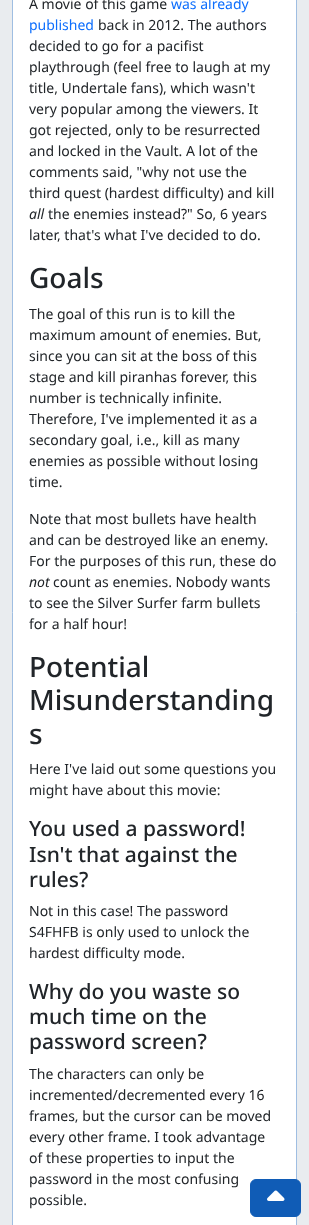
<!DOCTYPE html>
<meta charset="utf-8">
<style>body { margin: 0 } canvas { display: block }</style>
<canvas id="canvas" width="309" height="1225"></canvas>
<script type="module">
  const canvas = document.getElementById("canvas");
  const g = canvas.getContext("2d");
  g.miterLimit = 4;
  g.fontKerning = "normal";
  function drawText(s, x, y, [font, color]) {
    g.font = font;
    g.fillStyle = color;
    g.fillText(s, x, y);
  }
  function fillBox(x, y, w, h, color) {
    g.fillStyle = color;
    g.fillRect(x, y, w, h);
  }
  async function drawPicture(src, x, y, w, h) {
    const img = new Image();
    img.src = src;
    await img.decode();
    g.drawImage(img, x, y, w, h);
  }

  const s1 = ["14px Noto Sans", "#212529"];
  const s2 = ["14px Noto Sans", "#0D6EFD"];
  const s3 = ["italic 14px Noto Sans", "#212529"];
  const s4 = ["500 28px Noto Sans", "#212529"];
  const s5 = ["500 21px Noto Sans", "#212529"];

  fillBox(0, 0, 309, 1225, "#E9ECEF");
  g.fillStyle = "#FFFFFF";
  g.beginPath();
  g.rect(12.5, -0.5, 284, 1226);
  g.fill();
  g.strokeStyle = "#9FBEE2";
  g.stroke();
  drawText("A movie of this game", 29, 9, s1);
  drawText("was already", 171, 9, s2);
  drawText("published", 29, 30, s2);
  drawText("back in 2012. The authors", 98, 30, s1);
  drawText("decided to go for a pacifist", 29, 51, s1);
  drawText("playthrough (feel free to laugh at my", 29, 72, s1);
  drawText("title, Undertale fans), which wasn't", 29, 93, s1);
  drawText("very popular among the viewers. It", 29, 114, s1);
  drawText("got rejected, only to be resurrected", 29, 135, s1);
  drawText("and locked in the Vault. A lot of the", 29, 156, s1);
  drawText("comments said, \"why not use the", 29, 177, s1);
  drawText("third quest (hardest difficulty) and kill", 29, 198, s1);
  drawText("all", 29, 219, s3);
  drawText("the enemies instead?\" So, 6 years", 48, 219, s1);
  drawText("later, that's what I've decided to do.", 29, 240, s1);
  drawText("Goals", 29, 288, s4);
  drawText("The goal of this run is to kill the", 29, 319, s1);
  drawText("maximum amount of enemies. But,", 29, 340, s1);
  drawText("since you can sit at the boss of this", 29, 361, s1);
  drawText("stage and kill piranhas forever, this", 29, 382, s1);
  drawText("number is technically infinite.", 29, 403, s1);
  drawText("Therefore, I've implemented it as a", 29, 424, s1);
  drawText("secondary goal, i.e., kill as many", 29, 445, s1);
  drawText("enemies as possible without losing", 29, 466, s1);
  drawText("time.", 29, 487, s1);
  drawText("Note that most bullets have health", 29, 524, s1);
  drawText("and can be destroyed like an enemy.", 29, 545, s1);
  drawText("For the purposes of this run, these do", 29, 566, s1);
  drawText("not", 29, 587, s3);
  drawText("count as enemies. Nobody wants", 53, 587, s1);
  drawText("to see the Silver Surfer farm bullets", 29, 608, s1);
  drawText("for a half hour!", 29, 629, s1);
  drawText("Potential", 29, 677, s4);
  drawText("Misunderstanding", 29, 710, s4);
  drawText("s", 29, 744, s4);
  drawText("Here I've laid out some questions you", 29, 774, s1);
  drawText("might have about this movie:", 29, 795, s1);
  drawText("You used a password!", 29, 836, s5);
  drawText("Isn't that against the", 29, 862, s5);
  drawText("rules?", 29, 887, s5);
  drawText("Not in this case! The password", 29, 916, s1);
  drawText("S4FHFB is only used to unlock the", 29, 937, s1);
  drawText("hardest difficulty mode.", 29, 958, s1);
  drawText("Why do you waste so", 29, 999, s5);
  drawText("much time on the", 29, 1024, s5);
  drawText("password screen?", 29, 1049, s5);
  drawText("The characters can only be", 29, 1079, s1);
  drawText("incremented/decremented every 16", 29, 1100, s1);
  drawText("frames, but the cursor can be moved", 29, 1121, s1);
  drawText("every other frame. I took advantage", 29, 1142, s1);
  drawText("of these properties to input the", 29, 1163, s1);
  drawText("password in the most confusing", 29, 1184, s1);
  drawText("possible.", 29, 1205, s1);
  g.fillStyle = "#105CB6";
  g.beginPath();
  g.roundRect(250.5, 1179.5, 50, 37, 5.5);
  g.fill();
  g.strokeStyle = "#105CB6";
  g.stroke();
  await drawPicture("pic1.png", 267, 1190, 18, 11);
</script>
